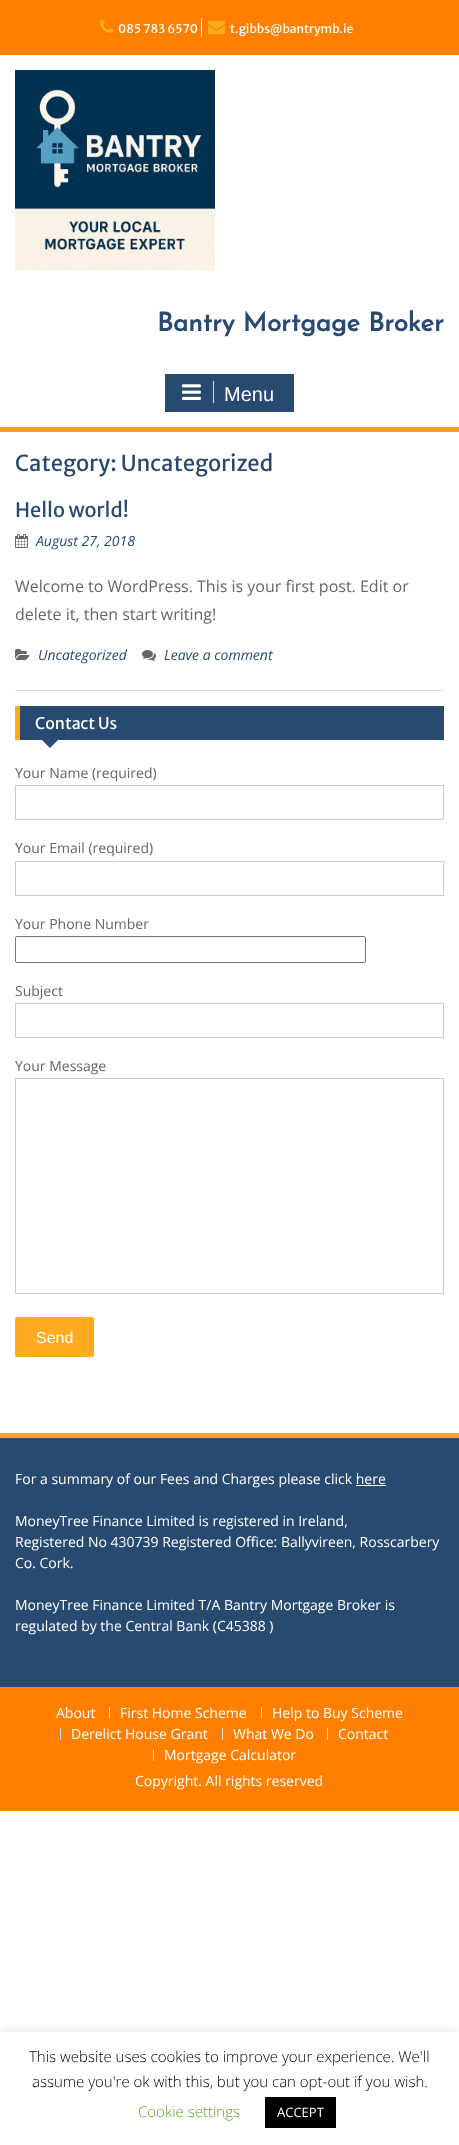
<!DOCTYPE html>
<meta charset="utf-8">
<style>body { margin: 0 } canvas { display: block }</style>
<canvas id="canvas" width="459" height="2145"></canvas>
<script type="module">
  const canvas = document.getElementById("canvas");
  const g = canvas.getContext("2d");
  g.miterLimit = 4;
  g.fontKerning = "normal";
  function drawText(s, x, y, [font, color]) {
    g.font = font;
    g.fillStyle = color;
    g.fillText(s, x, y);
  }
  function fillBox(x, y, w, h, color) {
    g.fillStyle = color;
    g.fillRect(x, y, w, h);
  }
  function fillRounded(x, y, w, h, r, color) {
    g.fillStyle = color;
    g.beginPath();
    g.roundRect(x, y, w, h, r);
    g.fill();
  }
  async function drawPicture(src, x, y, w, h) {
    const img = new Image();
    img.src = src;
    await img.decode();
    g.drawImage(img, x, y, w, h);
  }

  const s1 = ["12px Merriweather Sans", "#FFFFFF"];
  const s2 = ["bold 26px Josefin Sans", "#294A70"];
  const s3 = ["20px Liberation Sans", "#FFFFFF"];
  const s4 = ["22px Merriweather Sans", "#294A70"];
  const s5 = ["20px Merriweather Sans", "#294A70"];
  const s6 = ["italic 14px Open Sans", "#294A70"];
  const s7 = ["16px Open Sans", "#666666"];
  const s8 = ["16px Merriweather Sans", "#FFFFFF"];
  const s9 = ["14px Open Sans", "#666666"];
  const s10 = ["16px Liberation Sans", "#FFFFFF"];
  const s11 = ["14px Open Sans", "#FFFFFF"];
  const s12 = ["300 15px Open Sans", "#000000"];
  const s13 = ["300 15px Open Sans", "#62A329"];
  const s14 = ["13px Open Sans", "#FFFFFF"];

  fillBox(0, 0, 459, 2145, "#FFFFFF");
  fillBox(0, 0, 459, 55, "#FF7F00");
  await drawPicture("pic1.png", 100, 19, 14, 14);
  drawText("085 783 6570", 118, 33, s1);
  fillBox(201, 18, 1, 19, "#FFFFFF");
  await drawPicture("pic2.png", 208, 20, 17, 15);
  drawText("t.gibbs@bantrymb.ie", 230, 33, s1);
  await drawPicture("pic3.png", 15, 70, 200, 200);
  drawText("Bantry Mortgage Broker", 157, 331, s2);
  fillBox(0, 427, 459, 5, "#F4A024");
  fillBox(165, 374, 129, 38, "#294A70");
  fillBox(213, 381, 1, 22, "#DDDDDD");
  await drawPicture("pic4.png", 182, 384, 19, 16);
  drawText("Menu", 224, 401, s3);
  drawText("Category: Uncategorized", 15, 471, s4);
  fillBox(15, 690, 429, 1, "#DDDDDD");
  drawText("Hello world!", 15, 517, s5);
  await drawPicture("pic5.png", 15, 534, 13, 14);
  drawText("August 27, 2018", 36, 546, s6);
  drawText("Welcome to WordPress. This is your first post. Edit or", 15, 592, s7);
  drawText("delete it, then start writing!", 15, 620, s7);
  await drawPicture("pic6.png", 15, 649, 15, 11);
  drawText("Uncategorized", 38, 660, s6);
  await drawPicture("pic7.png", 142, 650, 14, 11);
  drawText("Leave a comment", 164, 660, s6);
  fillBox(20, 706, 424, 34, "#294A70");
  fillBox(15, 706, 5, 34, "#FFAB1F");
  drawText("Contact Us", 35, 729, s8);
  g.fillStyle = "#294A70";
  g.beginPath();
  g.moveTo(41, 739);
  g.lineTo(59, 739);
  g.lineTo(50, 748);
  g.closePath();
  g.fill();
  drawText("Your Name (required)", 15, 778, s9);
  g.strokeStyle = "#CCCCCC";
  g.strokeRect(15.5, 785.5, 428, 34);
  drawText("Your Email (required)", 15, 853, s9);
  g.strokeRect(15.5, 861.5, 428, 34);
  drawText("Your Phone Number", 15, 929, s9);
  g.beginPath();
  g.roundRect(15.5, 936.5, 350, 26, 1.5);
  g.strokeStyle = "#767676";
  g.stroke();
  drawText("Subject", 15, 996, s9);
  g.strokeStyle = "#CCCCCC";
  g.strokeRect(15.5, 1003.5, 428, 34);
  drawText("Your Message", 15, 1071, s9);
  g.strokeRect(15.5, 1078.5, 428, 215);
  fillRounded(15, 1317, 79, 40, 2, "#FFAB1F");
  drawText("Send", 36, 1343, s10);
  fillBox(0, 1438, 459, 249, "#294A70");
  fillBox(0, 1433, 459, 5, "#FFAB1F");
  drawText("For a summary of our Fees and Charges please click here", 15, 1484, s11);
  fillBox(356, 1485, 30, 1, "#FFFFFF");
  drawText("MoneyTree Finance Limited is registered in Ireland,", 15, 1526, s11);
  drawText("Registered No 430739 Registered Office: Ballyvireen, Rosscarbery", 15, 1547, s11);
  drawText("Co. Cork.", 15, 1568, s11);
  drawText("MoneyTree Finance Limited T/A Bantry Mortgage Broker is", 15, 1610, s11);
  drawText("regulated by the Central Bank (C45388 )", 15, 1631, s11);
  fillBox(0, 1687, 459, 124, "#FF7F00");
  drawText("About", 56, 1718, s11);
  fillBox(109, 1707, 1, 12, "#DDDDDD");
  drawText("First Home Scheme", 120, 1718, s11);
  fillBox(261, 1707, 1, 12, "#DDDDDD");
  drawText("Help to Buy Scheme", 272, 1718, s11);
  fillBox(60, 1728, 1, 12, "#DDDDDD");
  drawText("Derelict House Grant", 71, 1739, s11);
  fillBox(222, 1728, 1, 12, "#DDDDDD");
  drawText("What We Do", 233, 1739, s11);
  fillBox(327, 1728, 1, 12, "#DDDDDD");
  drawText("Contact", 338, 1739, s11);
  fillBox(153, 1749, 1, 12, "#DDDDDD");
  drawText("Mortgage Calculator", 164, 1760, s11);
  drawText("Copyright. All rights reserved", 135, 1786, s11);
  g.fillStyle = "rgba(172, 171, 171, 0.3)";
  g.filter = "blur(5px)";
  g.beginPath();
  g.rect(0, 2031, 459, 113);
  g.fill();
  g.filter = "none";
  fillBox(0, 2032, 459, 113, "#FFFFFF");
  drawText("This website uses cookies to improve your experience. We'll", 29, 2062, s12);
  drawText("assume you're ok with this, but you can opt-out if you wish.", 32, 2087, s12);
  drawText("Cookie settings", 138, 2117, s13);
  fillBox(265, 2097, 71, 31, "#000000");
  drawText("ACCEPT", 277, 2117, s14);
</script>
